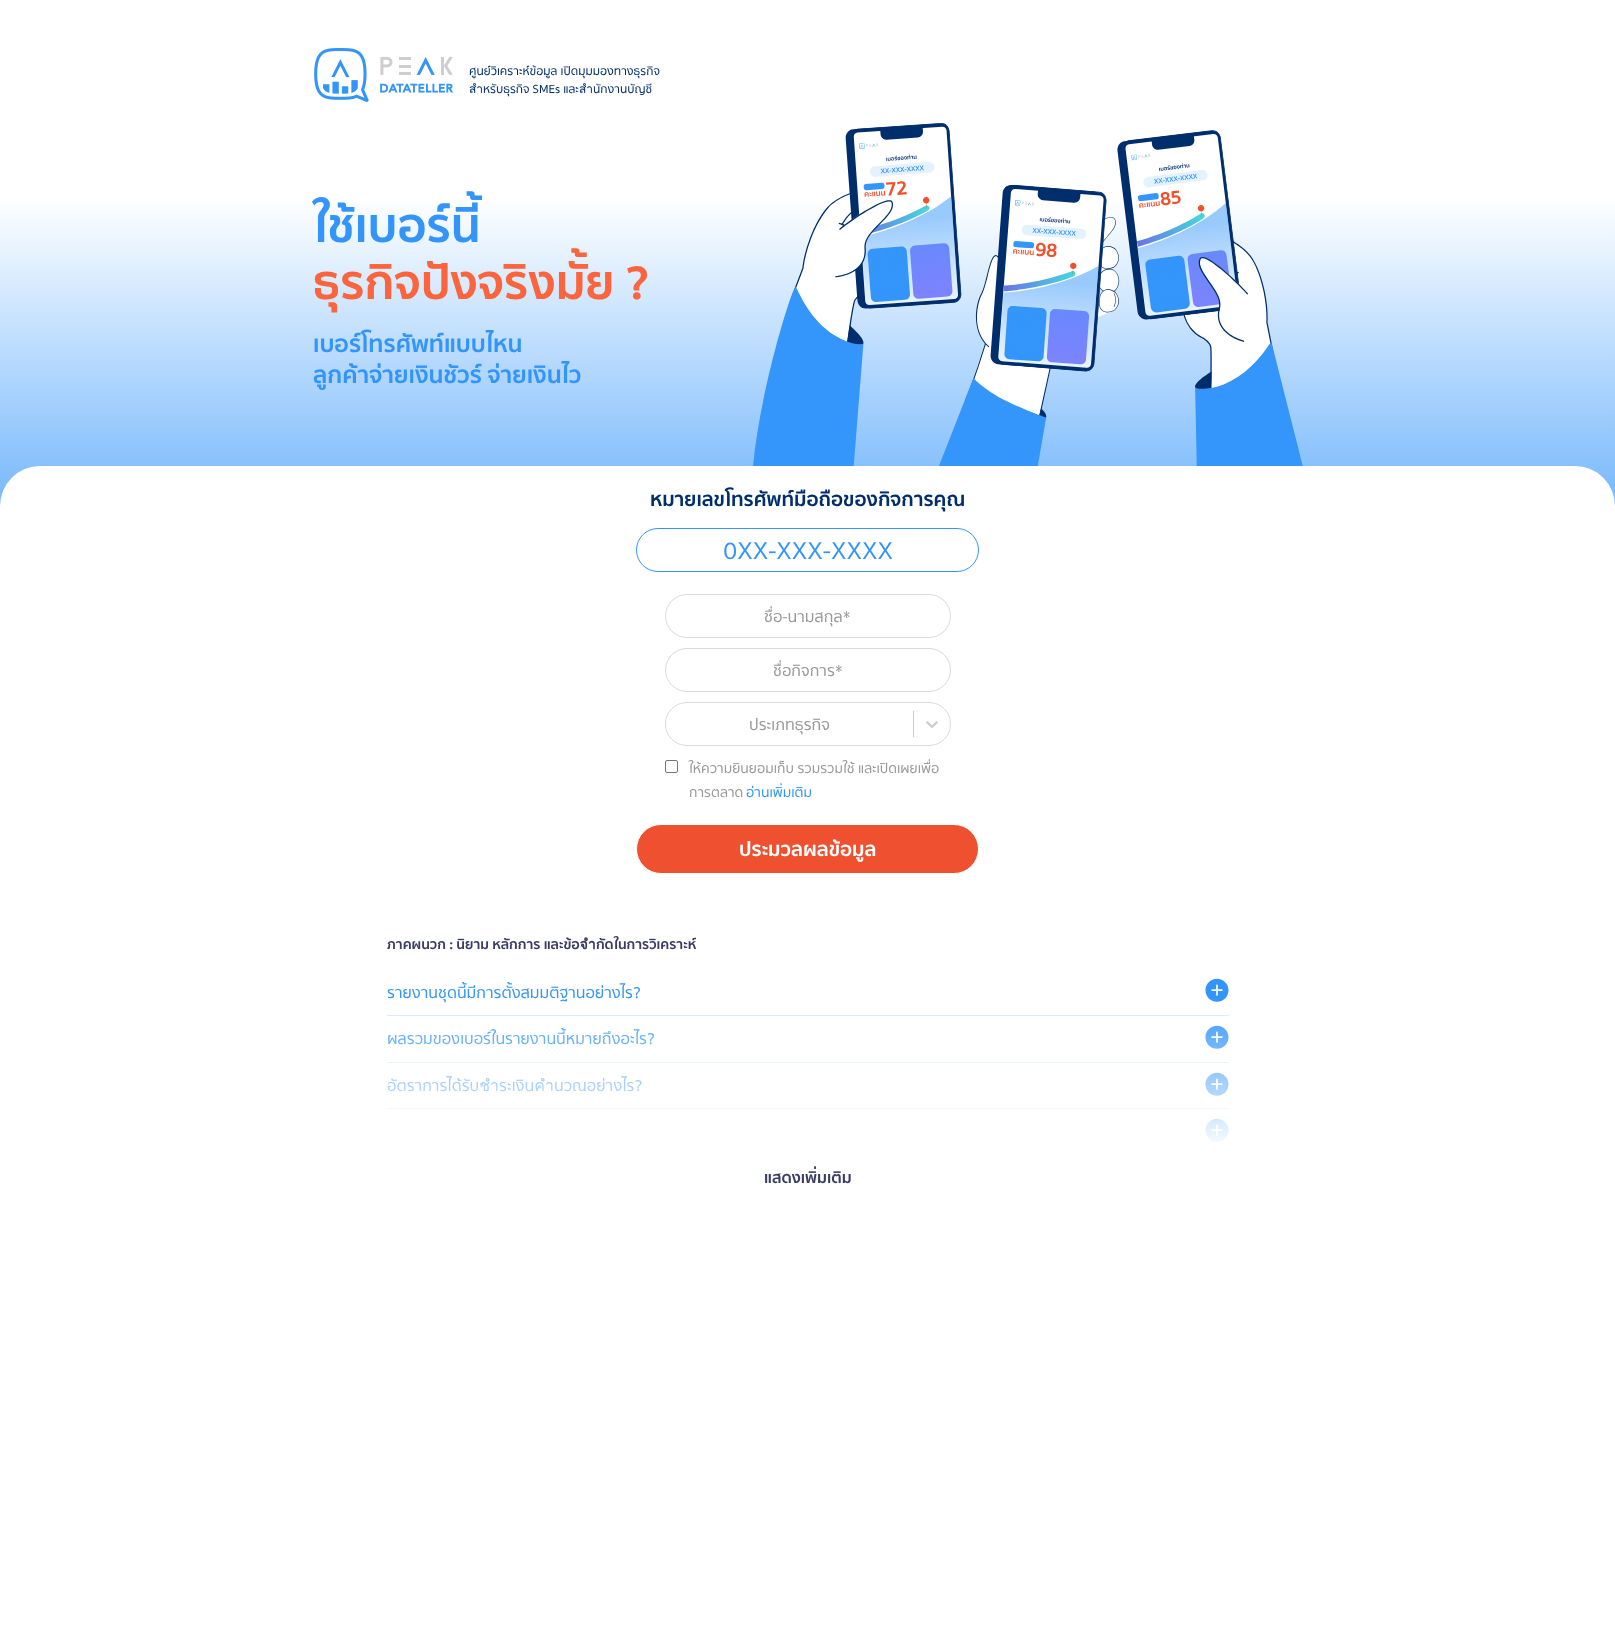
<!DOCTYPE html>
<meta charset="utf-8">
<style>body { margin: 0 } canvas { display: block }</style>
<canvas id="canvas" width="1615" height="1640"></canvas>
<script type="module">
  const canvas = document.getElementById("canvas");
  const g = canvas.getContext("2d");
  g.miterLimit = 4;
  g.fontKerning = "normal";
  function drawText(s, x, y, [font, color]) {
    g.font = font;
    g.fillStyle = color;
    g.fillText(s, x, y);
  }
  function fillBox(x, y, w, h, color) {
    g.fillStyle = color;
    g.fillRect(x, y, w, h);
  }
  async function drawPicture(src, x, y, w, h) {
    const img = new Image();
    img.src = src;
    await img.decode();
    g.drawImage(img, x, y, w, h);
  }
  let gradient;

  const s1 = ["500 12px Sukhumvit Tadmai", "#002E6D"];
  const s2 = ["bold 48px Sukhumvit Tadmai", "#3395FA"];
  const s3 = ["bold 48px Sukhumvit Tadmai", "#FB643C"];
  const s4 = ["bold 24px Sukhumvit Tadmai", "#3395FA"];
  const s5 = ["bold 20px Sukhumvit Tadmai", "#002E6D"];
  const s6 = ["500 25px Sukhumvit Tadmai", "#3395FA"];
  const s7 = ["500 16px Sukhumvit Tadmai", "#999999"];
  const s8 = ["500 14px Sukhumvit Tadmai", "#999999"];
  const s9 = ["500 14px Sukhumvit Tadmai", "#3395FA"];
  const s10 = ["bold 20px Sukhumvit Tadmai", "#FFFFFF"];
  const s11 = ["bold 14px Sukhumvit Tadmai", "#3B3C66"];
  const s12 = ["500 16px Sukhumvit Tadmai", "#3395FA"];
  const s13 = ["bold 16px Sukhumvit Tadmai", "#3B3C66"];

  fillBox(0, 0, 1615, 1640, "#FFFFFF");
  gradient = g.createLinearGradient(808, 26, 808, 658);
  gradient.addColorStop(0.27, "#FFFFFF");
  gradient.addColorStop(1, "#3395FA");
  g.fillStyle = gradient;
  g.fillRect(0, 202, 1615, 304);
  await drawPicture("pic1.png", 314, 48, 139, 54);
  drawText("ศูนย์วิเคราะห์ข้อมูล เปิดมุมมองทางธุรกิจ", 469, 75, s1);
  drawText("สำหรับธุรกิจ SMEs และสำนักงานบัญชี", 469, 93, s1);
  drawText("ใช้เบอร์นี้", 313, 242, s2);
  drawText("ธุรกิจปังจริงมั้ย ?", 313, 299, s3);
  drawText("เบอร์โทรศัพท์แบบไหน", 313, 352, s4);
  drawText("ลูกค้าจ่ายเงินชัวร์ จ่ายเงินไว", 313, 383, s4);
  await drawPicture("pic2.png", 753, 123, 550, 343);
  g.fillStyle = "#FFFFFF";
  g.beginPath();
  g.roundRect(0, 466, 1615, 46, [40, 40, 0, 0]);
  g.fill();
  drawText("หมายเลขโทรศัพท์มือถือของกิจการคุณ", 650, 506, s5);
  g.beginPath();
  g.roundRect(636.5, 528.5, 342, 43, 21.5);
  g.strokeStyle = "#3395FA";
  g.stroke();
  drawText("0XX-XXX-XXXX", 723, 559, s6);
  g.beginPath();
  g.roundRect(665.5, 594.5, 285, 43, 21.5);
  g.strokeStyle = "#DADADA";
  g.stroke();
  drawText("ชื่อ-นามสกุล*", 764, 622, s7);
  g.beginPath();
  g.roundRect(665.5, 648.5, 285, 43, 21.5);
  g.stroke();
  drawText("ชื่อกิจการ*", 773, 676, s7);
  g.beginPath();
  g.roundRect(665.5, 702.5, 285, 43, 21.5);
  g.stroke();
  drawText("ประเภทธุรกิจ", 749, 730, s7);
  fillBox(913, 711, 1, 26, "#CCCCCC");
  await drawPicture("pic3.png", 926, 721, 12, 7);
  g.beginPath();
  g.roundRect(665.5, 760.5, 12, 12, 1.5);
  g.strokeStyle = "#767676";
  g.stroke();
  drawText("ให้ความยินยอมเก็บ รวมรวมใช้ และเปิดเผยเพื่อ", 689, 773, s8);
  drawText("การตลาด", 689, 797, s8);
  drawText("อ่านเพิ่มเติม", 746, 797, s9);
  g.fillStyle = "#EF502F";
  g.beginPath();
  g.roundRect(636.5, 824.5, 342, 49, 24.5);
  g.fill();
  g.strokeStyle = "#FFFFFF";
  g.stroke();
  drawText("ประมวลผลข้อมูล", 739, 856, s10);
  drawText("ภาคผนวก : นิยาม หลักการ และข้อจำกัดในการวิเคราะห์", 387, 949, s11);
  fillBox(387, 1015, 842, 1, "#D6EAFE");
  drawText("รายงานชุดนี้มีการตั้งสมมติฐานอย่างไร?", 387, 998, s12);
  await drawPicture("pic4.png", 1205, 978, 24, 24);
  fillBox(387, 1062, 842, 1, "#D6EAFE");
  drawText("ผลรวมของเบอร์ในรายงานนี้หมายถึงอะไร?", 387, 1044, s12);
  await drawPicture("pic4.png", 1205, 1025, 24, 24);
  fillBox(387, 1108, 842, 1, "#D6EAFE");
  g.save();
  g.beginPath();
  g.rect(387, 970, 842, 180);
  g.clip();
  drawText("อัตราการได้รับชำระเงินคำนวณอย่างไร?", 387, 1091, s12);
  g.restore();
  await drawPicture("pic4.png", 1205, 1072, 24, 24);
  await drawPicture("pic4.png", 1205, 1118, 24, 24);
  gradient = g.createLinearGradient(808, 1000, 808, 1150);
  gradient.addColorStop(0, "rgba(255, 255, 255, 0)");
  gradient.addColorStop(1, "#FFFFFF");
  g.fillStyle = gradient;
  g.fillRect(387, 1015, 842, 127);
  drawText("แสดงเพิ่มเติม", 764, 1183, s13);
</script>
